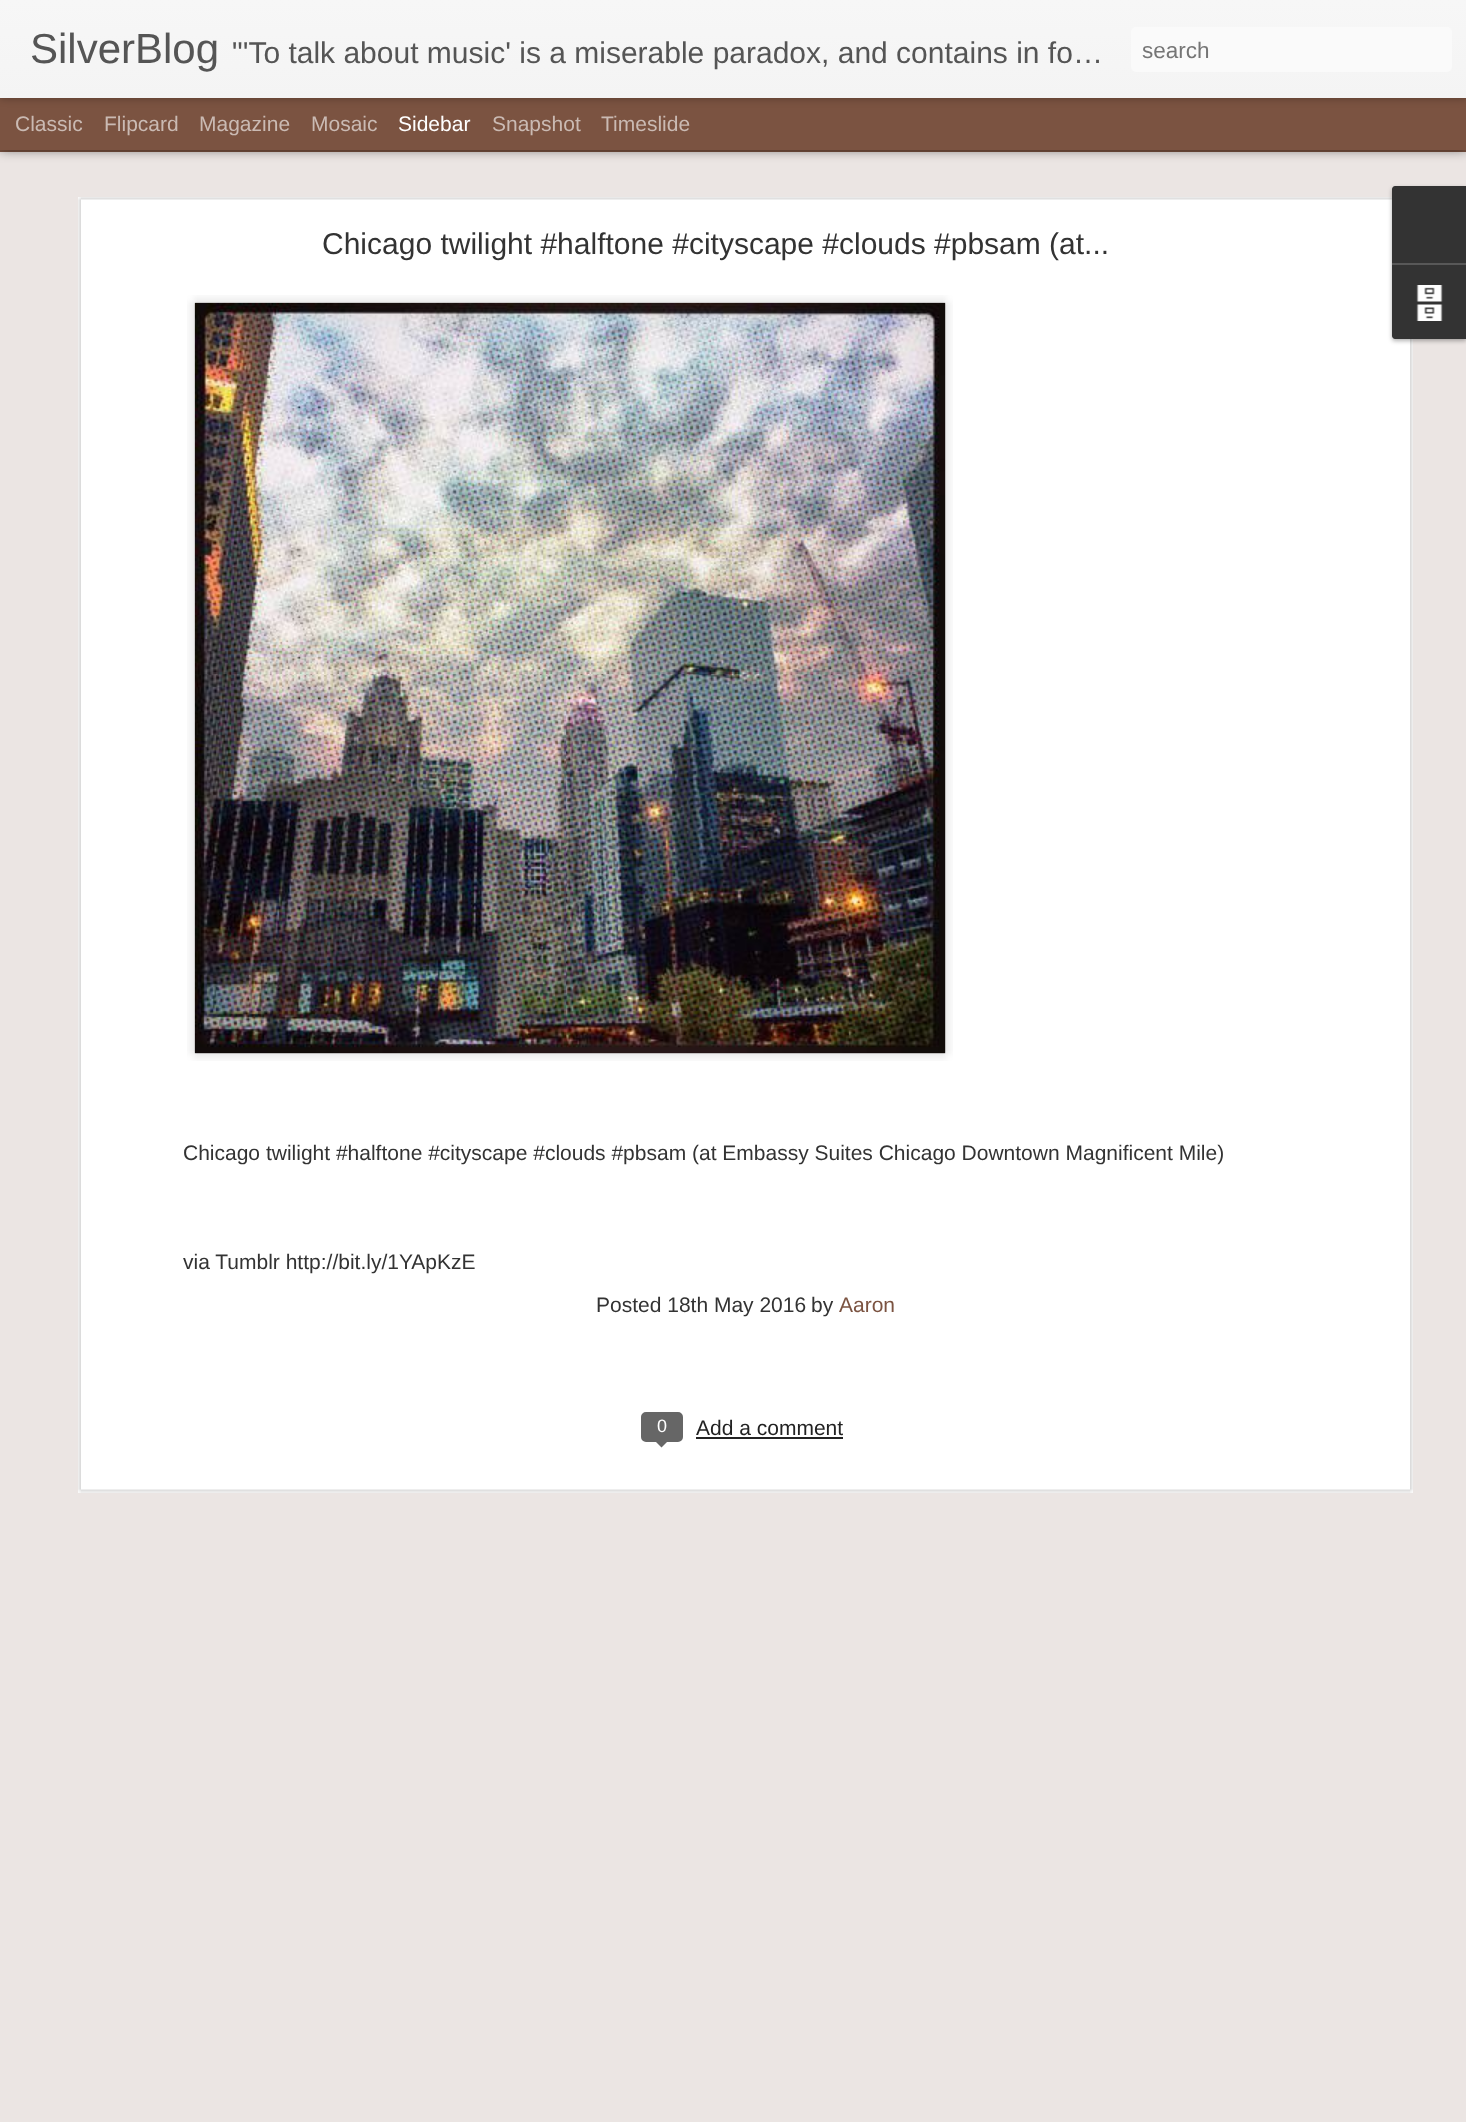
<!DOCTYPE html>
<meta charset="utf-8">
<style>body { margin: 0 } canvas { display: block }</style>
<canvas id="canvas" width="1466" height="2122"></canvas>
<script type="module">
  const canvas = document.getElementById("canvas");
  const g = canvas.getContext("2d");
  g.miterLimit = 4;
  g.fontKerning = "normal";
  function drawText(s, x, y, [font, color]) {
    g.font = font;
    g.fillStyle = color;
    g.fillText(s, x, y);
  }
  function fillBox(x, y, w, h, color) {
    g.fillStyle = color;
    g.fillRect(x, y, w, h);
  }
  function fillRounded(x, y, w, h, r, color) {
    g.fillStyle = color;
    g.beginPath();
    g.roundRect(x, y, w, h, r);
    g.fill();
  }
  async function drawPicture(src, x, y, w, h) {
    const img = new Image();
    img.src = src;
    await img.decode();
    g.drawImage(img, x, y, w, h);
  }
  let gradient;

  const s1 = ["42px Liberation Sans", "#555555"];
  const s2 = ["30px Liberation Sans", "#555555"];
  const s3 = ["22.5px Liberation Sans", "#757575"];
  const s4 = ["21px Liberation Sans", "#CABAB3"];
  const s5 = ["21px Liberation Sans", "#FFFFFF"];
  const s6 = ["30px Liberation Sans", "#333333"];
  const s7 = ["21px Liberation Sans", "#333333"];
  const s8 = ["21px Liberation Sans", "#7B5341"];
  const s9 = ["18px Liberation Sans", "#FFFFFF"];
  const s10 = ["21px Liberation Sans", "#222222"];

  fillBox(0, 0, 1466, 2122, "#7B5341");
  fillBox(0, 152, 1466, 1970, "#EBE5E3");
  g.fillStyle = "rgba(0, 0, 0, 0.5)";
  g.filter = "blur(6px)";
  g.beginPath();
  g.rect(0, 98, 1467, 52);
  g.fill();
  g.filter = "none";
  fillBox(0, 98, 1466, 52, "#7B5341");
  g.fillStyle = "rgba(0, 0, 0, 0.3)";
  g.filter = "blur(4px)";
  g.beginPath();
  g.rect(0, 0, 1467, 98);
  g.fill();
  g.filter = "none";
  gradient = g.createLinearGradient(0, 0, 0, 98);
  gradient.addColorStop(0, "#F7F7F7");
  gradient.addColorStop(1, "#F4F4F4");
  g.fillStyle = gradient;
  g.fillRect(0, 0, 1466, 98);
  drawText("SilverBlog", 30, 63, s1);
  drawText("\"'To talk about music' is a miserable paradox, and contains in fo…", 232, 63, s2);
  fillRounded(1131, 27, 321, 45, 5, "#FAFAFA");
  drawText("search", 1142, 58, s3);
  drawText("Classic", 15, 131, s4);
  drawText("Flipcard", 104, 131, s4);
  drawText("Magazine", 199, 131, s4);
  drawText("Mosaic", 311, 131, s4);
  drawText("Sidebar", 398, 131, s5);
  drawText("Snapshot", 492, 131, s4);
  drawText("Timeslide", 601, 131, s4);
  fillBox(78, 197, 1335, 1296, "#FFFFFF");
  await drawPicture("pic1.png", 78, 197, 1335, 1296);
  drawText("Chicago twilight #halftone #cityscape #clouds #pbsam (at...", 322, 254, s6);
  await drawPicture("pic2.png", 187, 295, 766, 766);
  await drawPicture("pic3.png", 194, 302, 752, 752);
  drawText("Chicago twilight #halftone #cityscape #clouds #pbsam (at Embassy Suites Chicago Downtown Magnificent Mile)", 183, 1160, s7);
  drawText("via Tumblr http://bit.ly/1YApKzE", 183, 1269, s7);
  drawText("Posted 18th May 2016", 596, 1312, s7);
  drawText("by", 811, 1312, s7);
  drawText("Aaron", 839, 1312, s8);
  g.fillStyle = "#666666";
  g.beginPath();
  g.roundRect(642, 1413, 40, 28, 4);
  g.fill();
  g.strokeStyle = "#666666";
  g.lineWidth = 2;
  g.stroke();
  drawText("0", 657, 1432, s9);
  g.fillStyle = "#666666";
  g.beginPath();
  g.moveTo(654, 1440);
  g.lineTo(669, 1440);
  g.lineTo(661.5, 1447.5);
  g.closePath();
  g.fill();
  drawText("Add a comment", 696, 1435, s10);
  fillBox(696, 1437, 147, 2, "#222222");
  g.fillStyle = "rgba(0, 0, 0, 0.3)";
  g.filter = "blur(2px)";
  g.beginPath();
  g.roundRect(1392, 188, 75, 153, 3);
  g.fill();
  g.filter = "none";
  g.fillStyle = "#333333";
  g.beginPath();
  g.moveTo(1395, 186);
  g.lineTo(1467, 186);
  g.lineTo(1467, 263);
  g.lineTo(1392, 263);
  g.lineTo(1392, 189);
  g.bezierCurveTo(1392, 187.5, 1393.5, 186, 1395, 186);
  g.closePath();
  g.fill();
  g.beginPath();
  g.moveTo(1392, 263);
  g.lineTo(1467, 263);
  g.lineTo(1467, 339);
  g.lineTo(1395, 339);
  g.bezierCurveTo(1393.5, 339, 1392, 337.5, 1392, 336);
  g.closePath();
  g.fill();
  fillBox(1392, 263, 74, 2, "#585858");
  await drawPicture("pic4.png", 1416, 285, 27, 36);
</script>
